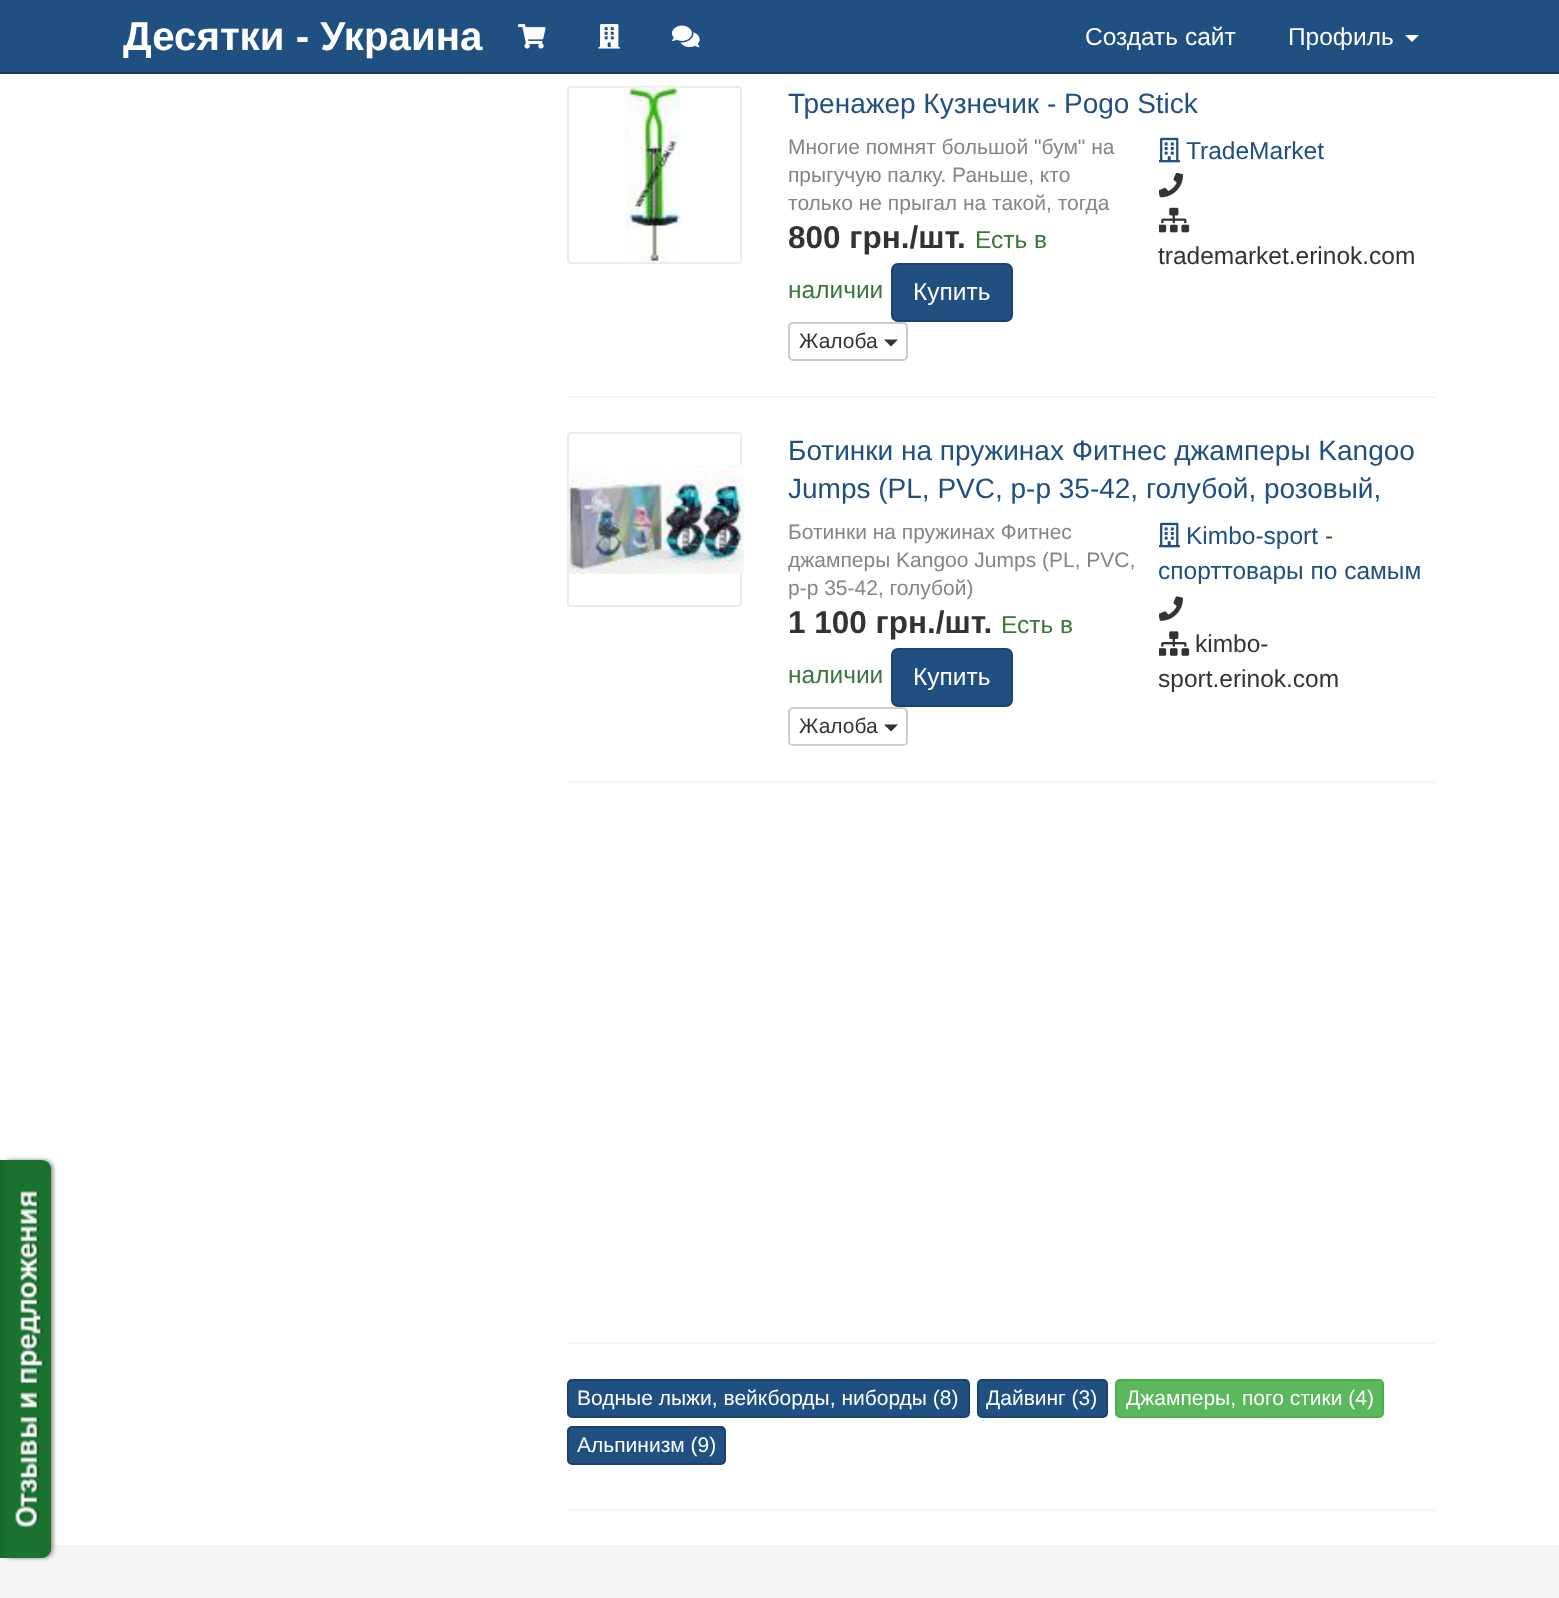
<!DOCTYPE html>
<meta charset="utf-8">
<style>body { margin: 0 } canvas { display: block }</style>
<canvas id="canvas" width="1559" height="1598"></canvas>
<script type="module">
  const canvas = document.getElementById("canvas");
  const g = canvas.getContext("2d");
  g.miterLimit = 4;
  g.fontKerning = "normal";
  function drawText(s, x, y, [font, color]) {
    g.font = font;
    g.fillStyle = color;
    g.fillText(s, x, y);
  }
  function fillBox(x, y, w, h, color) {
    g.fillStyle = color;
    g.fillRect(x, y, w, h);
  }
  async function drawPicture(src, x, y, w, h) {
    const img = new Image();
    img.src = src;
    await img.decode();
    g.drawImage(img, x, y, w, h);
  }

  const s1 = ["bold 40.25px Liberation Sans", "#FFFFFF"];
  const s2 = ["24.5px Liberation Sans", "#FFFFFF"];
  const s3 = ["28px Liberation Sans", "#205081"];
  const s4 = ["21px Liberation Sans", "#858585"];
  const s5 = ["bold 31.5px Liberation Sans", "#333333"];
  const s6 = ["24.5px Liberation Sans", "#3C763D"];
  const s7 = ["21px Liberation Sans", "#333333"];
  const s8 = ["24.5px Liberation Sans", "#205081"];
  const s9 = ["24.5px Liberation Sans", "#333333"];
  const s10 = ["21px Liberation Sans", "#FFFFFF"];

  fillBox(0, 0, 1559, 1598, "#FFFFFF");
  fillBox(0, 0, 1559, 72, "#205081");
  fillBox(0, 72, 1559, 2, "#163758");
  drawText("Десятки - Украина", 123, 50, s1);
  await drawPicture("pic1.png", 518, 24, 28, 25);
  await drawPicture("pic2.png", 598, 24, 22, 25);
  await drawPicture("pic3.png", 672, 25, 28, 22);
  drawText("Создать сайт", 1085, 45, s2);
  drawText("Профиль", 1288, 45, s2);
  g.beginPath();
  g.moveTo(1405, 35);
  g.lineTo(1419, 35);
  g.lineTo(1412, 42);
  g.closePath();
  g.fill();
  fillBox(0, 1545, 1559, 53, "#F5F5F5");
  g.fillStyle = "#888888";
  g.filter = "blur(2px)";
  g.beginPath();
  g.roundRect(2, 1160, 51, 398, 9);
  g.fill();
  g.filter = "none";
  g.fillStyle = "#19732E";
  g.beginPath();
  g.roundRect(0, 1160, 51, 398, [0, 9, 9, 0]);
  g.fill();
  await drawPicture("pic4.png", 0, 1160, 6, 397);
  await drawPicture("pic5.png", 15, 1191, 29, 337);
  g.beginPath();
  g.roundRect(568, 87, 173, 176, 3);
  g.strokeStyle = "#EBEBEB";
  g.lineWidth = 2;
  g.stroke();
  await drawPicture("pic6.png", 626, 87, 55, 176);
  drawText("Тренажер Кузнечик - Pogo Stick", 788, 113, s3);
  drawText("Многие помнят большой \"бум\" на", 788, 154, s4);
  drawText("прыгучую палку. Раньше, кто", 788, 182, s4);
  drawText("только не прыгал на такой, тогда", 788, 210, s4);
  drawText("800 грн./шт.", 788, 248, s5);
  drawText("Есть в", 975, 248, s6);
  drawText("наличии", 788, 298, s6);
  g.fillStyle = "#205081";
  g.beginPath();
  g.roundRect(892, 264, 120, 57, 6);
  g.fill();
  g.strokeStyle = "#1B436D";
  g.stroke();
  drawText("Купить", 913, 300, s2);
  g.beginPath();
  g.roundRect(789, 323, 118, 37, 4);
  g.strokeStyle = "#CCCCCC";
  g.stroke();
  drawText("Жалоба", 799, 348, s7);
  g.beginPath();
  g.moveTo(884, 339.5);
  g.lineTo(898, 339.5);
  g.lineTo(891, 346.5);
  g.closePath();
  g.fill();
  await drawPicture("pic7.png", 1159, 137, 21, 26);
  drawText("TradeMarket", 1186, 159, s8);
  await drawPicture("pic8.png", 1159, 172, 24, 26);
  await drawPicture("pic9.png", 1159, 207, 31, 26);
  drawText("trademarket.erinok.com", 1158, 264, s9);
  fillBox(567, 396, 868, 2, "#F5F5F5");
  g.beginPath();
  g.roundRect(568, 433, 173, 173, 3);
  g.strokeStyle = "#EBEBEB";
  g.stroke();
  await drawPicture("pic10.png", 568, 465, 176, 109);
  drawText("Ботинки на пружинах Фитнес джамперы Kangoo", 788, 460, s3);
  drawText("Jumps (PL, PVC, р-р 35-42, голубой, розовый,", 788, 498, s3);
  drawText("Ботинки на пружинах Фитнес", 788, 539, s4);
  drawText("джамперы Kangoo Jumps (PL, PVC,", 788, 567, s4);
  drawText("р-р 35-42, голубой)", 788, 595, s4);
  drawText("1 100 грн./шт.", 788, 633, s5);
  drawText("Есть в", 1001, 633, s6);
  drawText("наличии", 788, 683, s6);
  g.fillStyle = "#205081";
  g.beginPath();
  g.roundRect(892, 649, 120, 57, 6);
  g.fill();
  g.strokeStyle = "#1B436D";
  g.stroke();
  drawText("Купить", 913, 685, s2);
  g.beginPath();
  g.roundRect(789, 708, 118, 37, 4);
  g.strokeStyle = "#CCCCCC";
  g.stroke();
  drawText("Жалоба", 799, 733, s7);
  g.beginPath();
  g.moveTo(884, 724.5);
  g.lineTo(898, 724.5);
  g.lineTo(891, 731.5);
  g.closePath();
  g.fill();
  await drawPicture("pic7.png", 1159, 522, 21, 26);
  drawText("Kimbo-sport -", 1186, 544, s8);
  g.save();
  g.beginPath();
  g.rect(1159, 518, 276, 74);
  g.clip();
  drawText("cпорттовары по самым", 1158, 579, s8);
  g.restore();
  await drawPicture("pic11.png", 1159, 596, 24, 25);
  await drawPicture("pic12.png", 1159, 631, 31, 25);
  drawText("kimbo-", 1195, 652, s9);
  drawText("sport.erinok.com", 1158, 687, s9);
  fillBox(567, 781, 868, 2, "#F5F5F5");
  fillBox(567, 1342, 868, 2, "#F5F5F5");
  g.fillStyle = "#205081";
  g.beginPath();
  g.roundRect(568, 1380, 401, 37, 4);
  g.fill();
  g.strokeStyle = "#1B436D";
  g.stroke();
  drawText("Водные лыжи, вейкборды, ниборды (8)", 577, 1405, s10);
  g.fillStyle = "#205081";
  g.beginPath();
  g.roundRect(978, 1380, 129, 37, 4);
  g.fill();
  g.stroke();
  drawText("Дайвинг (3)", 986, 1405, s10);
  g.fillStyle = "#5CB85C";
  g.beginPath();
  g.roundRect(1116, 1380, 267, 37, 4);
  g.fill();
  g.strokeStyle = "#4CAE4C";
  g.stroke();
  drawText("Джамперы, пого стики (4)", 1126, 1405, s10);
  g.fillStyle = "#205081";
  g.beginPath();
  g.roundRect(568, 1427, 157, 37, 4);
  g.fill();
  g.strokeStyle = "#1B436D";
  g.stroke();
  drawText("Альпинизм (9)", 577, 1452, s10);
  fillBox(567, 1509, 868, 2, "#F5F5F5");
</script>
